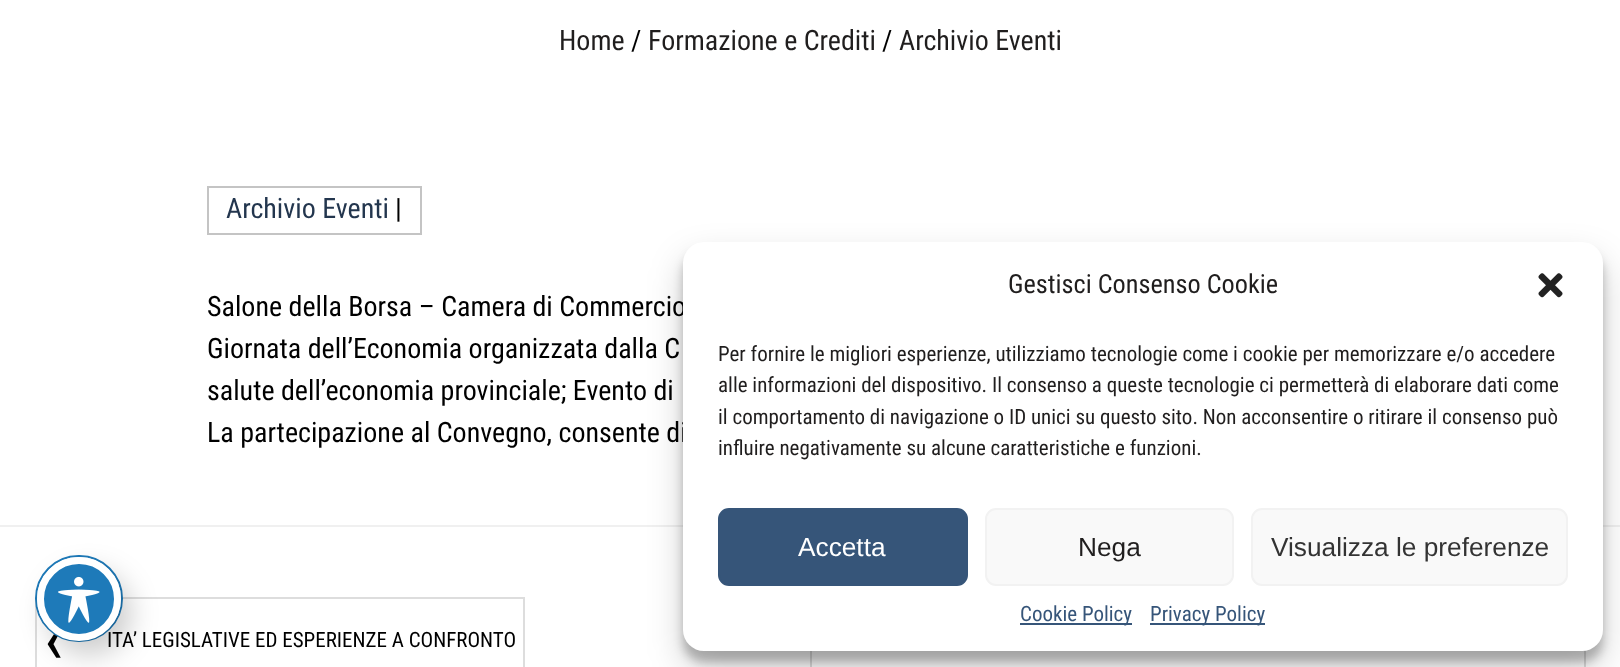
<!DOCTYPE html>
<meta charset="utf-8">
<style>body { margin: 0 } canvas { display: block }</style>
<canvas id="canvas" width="1620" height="667"></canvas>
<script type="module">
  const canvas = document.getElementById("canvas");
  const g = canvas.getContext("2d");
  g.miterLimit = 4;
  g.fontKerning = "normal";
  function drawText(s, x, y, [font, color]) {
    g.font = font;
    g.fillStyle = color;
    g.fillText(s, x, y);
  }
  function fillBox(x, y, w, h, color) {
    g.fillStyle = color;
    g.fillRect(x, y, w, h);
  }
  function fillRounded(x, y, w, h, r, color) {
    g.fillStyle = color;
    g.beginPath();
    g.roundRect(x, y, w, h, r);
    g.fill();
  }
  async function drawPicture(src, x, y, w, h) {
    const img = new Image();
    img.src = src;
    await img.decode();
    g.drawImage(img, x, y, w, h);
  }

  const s1 = ["28px Roboto Condensed", "#201E1E"];
  const s2 = ["28px Roboto Condensed", "#000000"];
  const s3 = ["28px Roboto Condensed", "#23364E"];
  const s4 = ["70px Roboto Condensed", "#000000"];
  const s5 = ["21px Roboto Condensed", "#000000"];
  const s6 = ["26.25px Roboto Condensed", "#201E1E"];
  const s7 = ["21px Roboto Condensed", "#201E1E"];
  const s8 = ["26.25px Liberation Sans", "#FFFFFF"];
  const s9 = ["26.25px Liberation Sans", "#201E1E"];
  const s10 = ["26.25px Liberation Sans", "#333333"];
  const s11 = ["21px Roboto Condensed", "#365579"];

  fillBox(0, 0, 1620, 667, "#FFFFFF");
  drawText("Home", 559, 50, s1);
  drawText("/", 631, 50, s2);
  drawText("Formazione e Crediti", 648, 50, s1);
  drawText("/", 882, 50, s2);
  drawText("Archivio Eventi", 899, 50, s1);
  g.strokeStyle = "#C4C4C4";
  g.lineWidth = 2;
  g.strokeRect(208, 187, 213, 47);
  drawText("Archivio Eventi", 226, 218, s3);
  drawText("|", 395, 218, s2);
  drawText("Salone della Borsa – Camera di Commercio", 207, 316, s2);
  drawText("Giornata dell’Economia organizzata dalla C", 207, 358, s2);
  drawText("salute dell’economia provinciale; Evento di", 207, 400, s2);
  drawText("La partecipazione al Convegno, consente di", 207, 442, s2);
  fillBox(0, 525, 1620, 2, "#F0F0F0");
  g.strokeStyle = "#DDDDDD";
  g.strokeRect(36, 598, 488, 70);
  drawText("‹", 44, 663, s4);
  drawText("ITA’ LEGISLATIVE ED ESPERIENZE A CONFRONTO", 107, 647, s5);
  g.strokeRect(811, 598, 774, 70);
  g.fillStyle = "rgba(0, 0, 0, 0.23)";
  g.filter = "blur(5px)";
  g.beginPath();
  g.roundRect(683, 252, 920, 410, 21);
  g.fill();
  g.filter = "none";
  g.fillStyle = "rgba(0, 0, 0, 0.19)";
  g.filter = "blur(17.5px)";
  g.beginPath();
  g.roundRect(683, 259, 920, 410, 21);
  g.fill();
  g.filter = "none";
  fillRounded(683, 242, 920, 409, 21, "#FFFFFF");
  drawText("Gestisci Consenso Cookie", 1008, 293, s6);
  await drawPicture("pic1.png", 1538, 273, 25, 25);
  drawText("Per fornire le migliori esperienze, utilizziamo tecnologie come i cookie per memorizzare e/o accedere", 718, 361, s7);
  drawText("alle informazioni del dispositivo. Il consenso a queste tecnologie ci permetterà di elaborare dati come", 718, 392, s7);
  drawText("il comportamento di navigazione o ID unici su questo sito. Non acconsentire o ritirare il consenso può", 718, 424, s7);
  drawText("influire negativamente su alcune caratteristiche e funzioni.", 718, 455, s7);
  g.fillStyle = "#365579";
  g.beginPath();
  g.roundRect(719, 509, 248, 76, 10);
  g.fill();
  g.strokeStyle = "#365579";
  g.stroke();
  drawText("Accetta", 798, 556, s8);
  g.fillStyle = "#F9F9F9";
  g.beginPath();
  g.roundRect(986, 509, 247, 76, 10);
  g.fill();
  g.strokeStyle = "#F2F2F2";
  g.stroke();
  drawText("Nega", 1078, 556, s9);
  g.fillStyle = "#F9F9F9";
  g.beginPath();
  g.roundRect(1252, 509, 315, 76, 10);
  g.fill();
  g.stroke();
  drawText("Visualizza le preferenze", 1271, 556, s10);
  fillBox(1020, 623, 112, 2, "#365579");
  drawText("Cookie Policy", 1020, 621, s11);
  fillBox(1150, 623, 115, 2, "#365579");
  drawText("Privacy Policy", 1150, 621, s11);
  g.beginPath();
  g.roundRect(36, 556, 86, 85, 42.5);
  g.strokeStyle = "#1E7AB9";
  g.stroke();
  g.fillStyle = "rgba(0, 0, 0, 0.2)";
  g.filter = "blur(14px)";
  g.beginPath();
  g.roundRect(47, 571, 84, 84, 42);
  g.fill();
  g.filter = "none";
  g.fillStyle = "#1E7AB9";
  g.beginPath();
  g.arc(79, 599, 38.5, 0, Math.PI * 2);
  g.fill();
  g.strokeStyle = "#FFFFFF";
  g.lineWidth = 7;
  g.stroke();
  await drawPicture("pic2.png", 58, 576, 42, 47);
</script>
